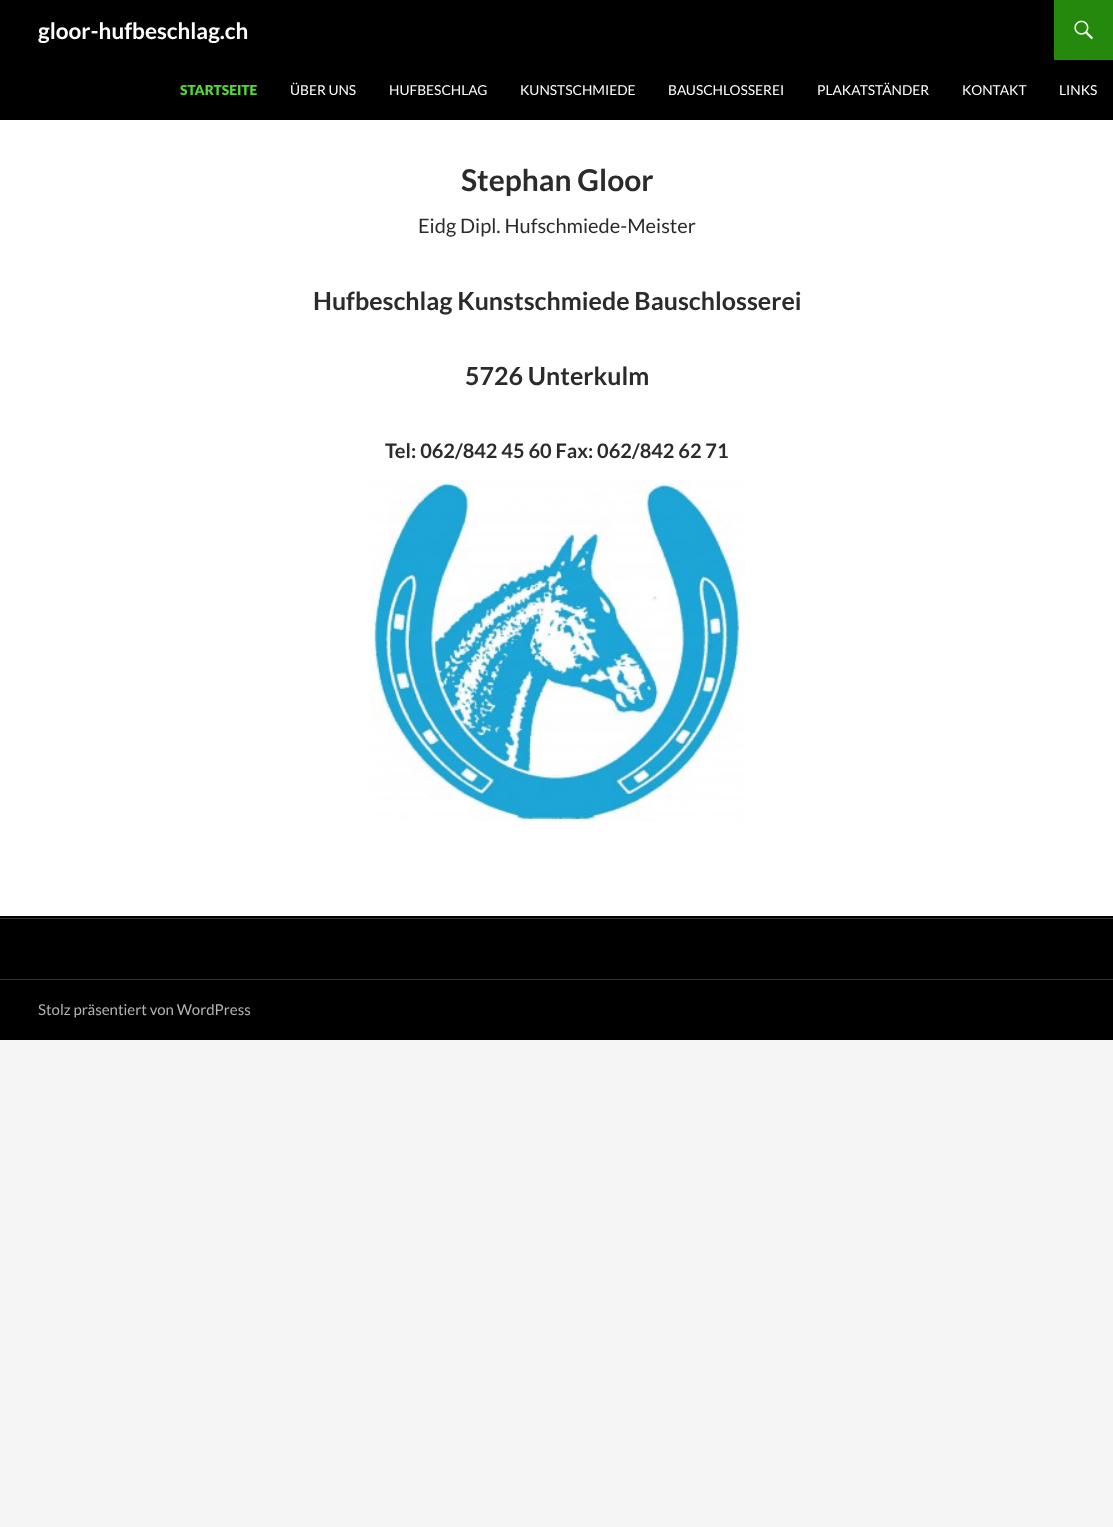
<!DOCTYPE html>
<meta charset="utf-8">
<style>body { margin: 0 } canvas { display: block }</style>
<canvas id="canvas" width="1113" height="1527"></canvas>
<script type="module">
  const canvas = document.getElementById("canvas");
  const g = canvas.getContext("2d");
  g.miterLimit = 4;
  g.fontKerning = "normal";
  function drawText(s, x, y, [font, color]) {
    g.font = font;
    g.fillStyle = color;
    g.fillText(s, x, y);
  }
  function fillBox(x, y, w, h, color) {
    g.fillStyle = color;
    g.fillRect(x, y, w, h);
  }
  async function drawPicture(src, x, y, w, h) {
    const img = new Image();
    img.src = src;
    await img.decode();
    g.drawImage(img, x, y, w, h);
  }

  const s1 = ["bold 22.5px Lato", "#FFFFFF"];
  const s2 = ["900 13.75px Lato", "#55D737"];
  const s3 = ["13.75px Lato", "#FFFFFF"];
  const s4 = ["bold 30px Lato", "#2B2B2B"];
  const s5 = ["20px Lato", "#2B2B2B"];
  const s6 = ["bold 25px Lato", "#2B2B2B"];
  const s7 = ["bold 20px Lato", "#2B2B2B"];
  const s8 = ["15px Lato", "#B3B3B3"];

  fillBox(0, 0, 1113, 1527, "#F5F5F5");
  fillBox(0, 120, 1113, 796, "#FFFFFF");
  fillBox(0, 0, 1113, 120, "#000000");
  drawText("gloor-hufbeschlag.ch", 38, 39, s1);
  fillBox(1054, 0, 59, 60, "#24890D");
  await drawPicture("pic1.png", 1074, 20, 19, 20);
  drawText("STARTSEITE", 180, 95, s2);
  drawText("ÜBER UNS", 290, 95, s3);
  drawText("HUFBESCHLAG", 389, 95, s3);
  drawText("KUNSTSCHMIEDE", 520, 95, s3);
  drawText("BAUSCHLOSSEREI", 668, 95, s3);
  drawText("PLAKATSTÄNDER", 817, 95, s3);
  drawText("KONTAKT", 962, 95, s3);
  drawText("LINKS", 1059, 95, s3);
  drawText("Stephan Gloor", 461, 191, s4);
  drawText("Eidg Dipl. Hufschmiede-Meister", 418, 233, s5);
  drawText("Hufbeschlag Kunstschmiede Bauschlosserei", 313, 310, s6);
  drawText("5726 Unterkulm", 465, 385, s6);
  drawText("Tel: 062/842 45 60 Fax: 062/842 62 71", 385, 458, s7);
  await drawPicture("pic2.png", 370, 480, 375, 342);
  fillBox(0, 916, 1113, 2, "#000000");
  fillBox(0, 918, 1113, 1, "#333333");
  fillBox(0, 919, 1113, 121, "#000000");
  fillBox(0, 979, 1113, 1, "#333333");
  drawText("Stolz präsentiert von WordPress", 38, 1015, s8);
</script>
